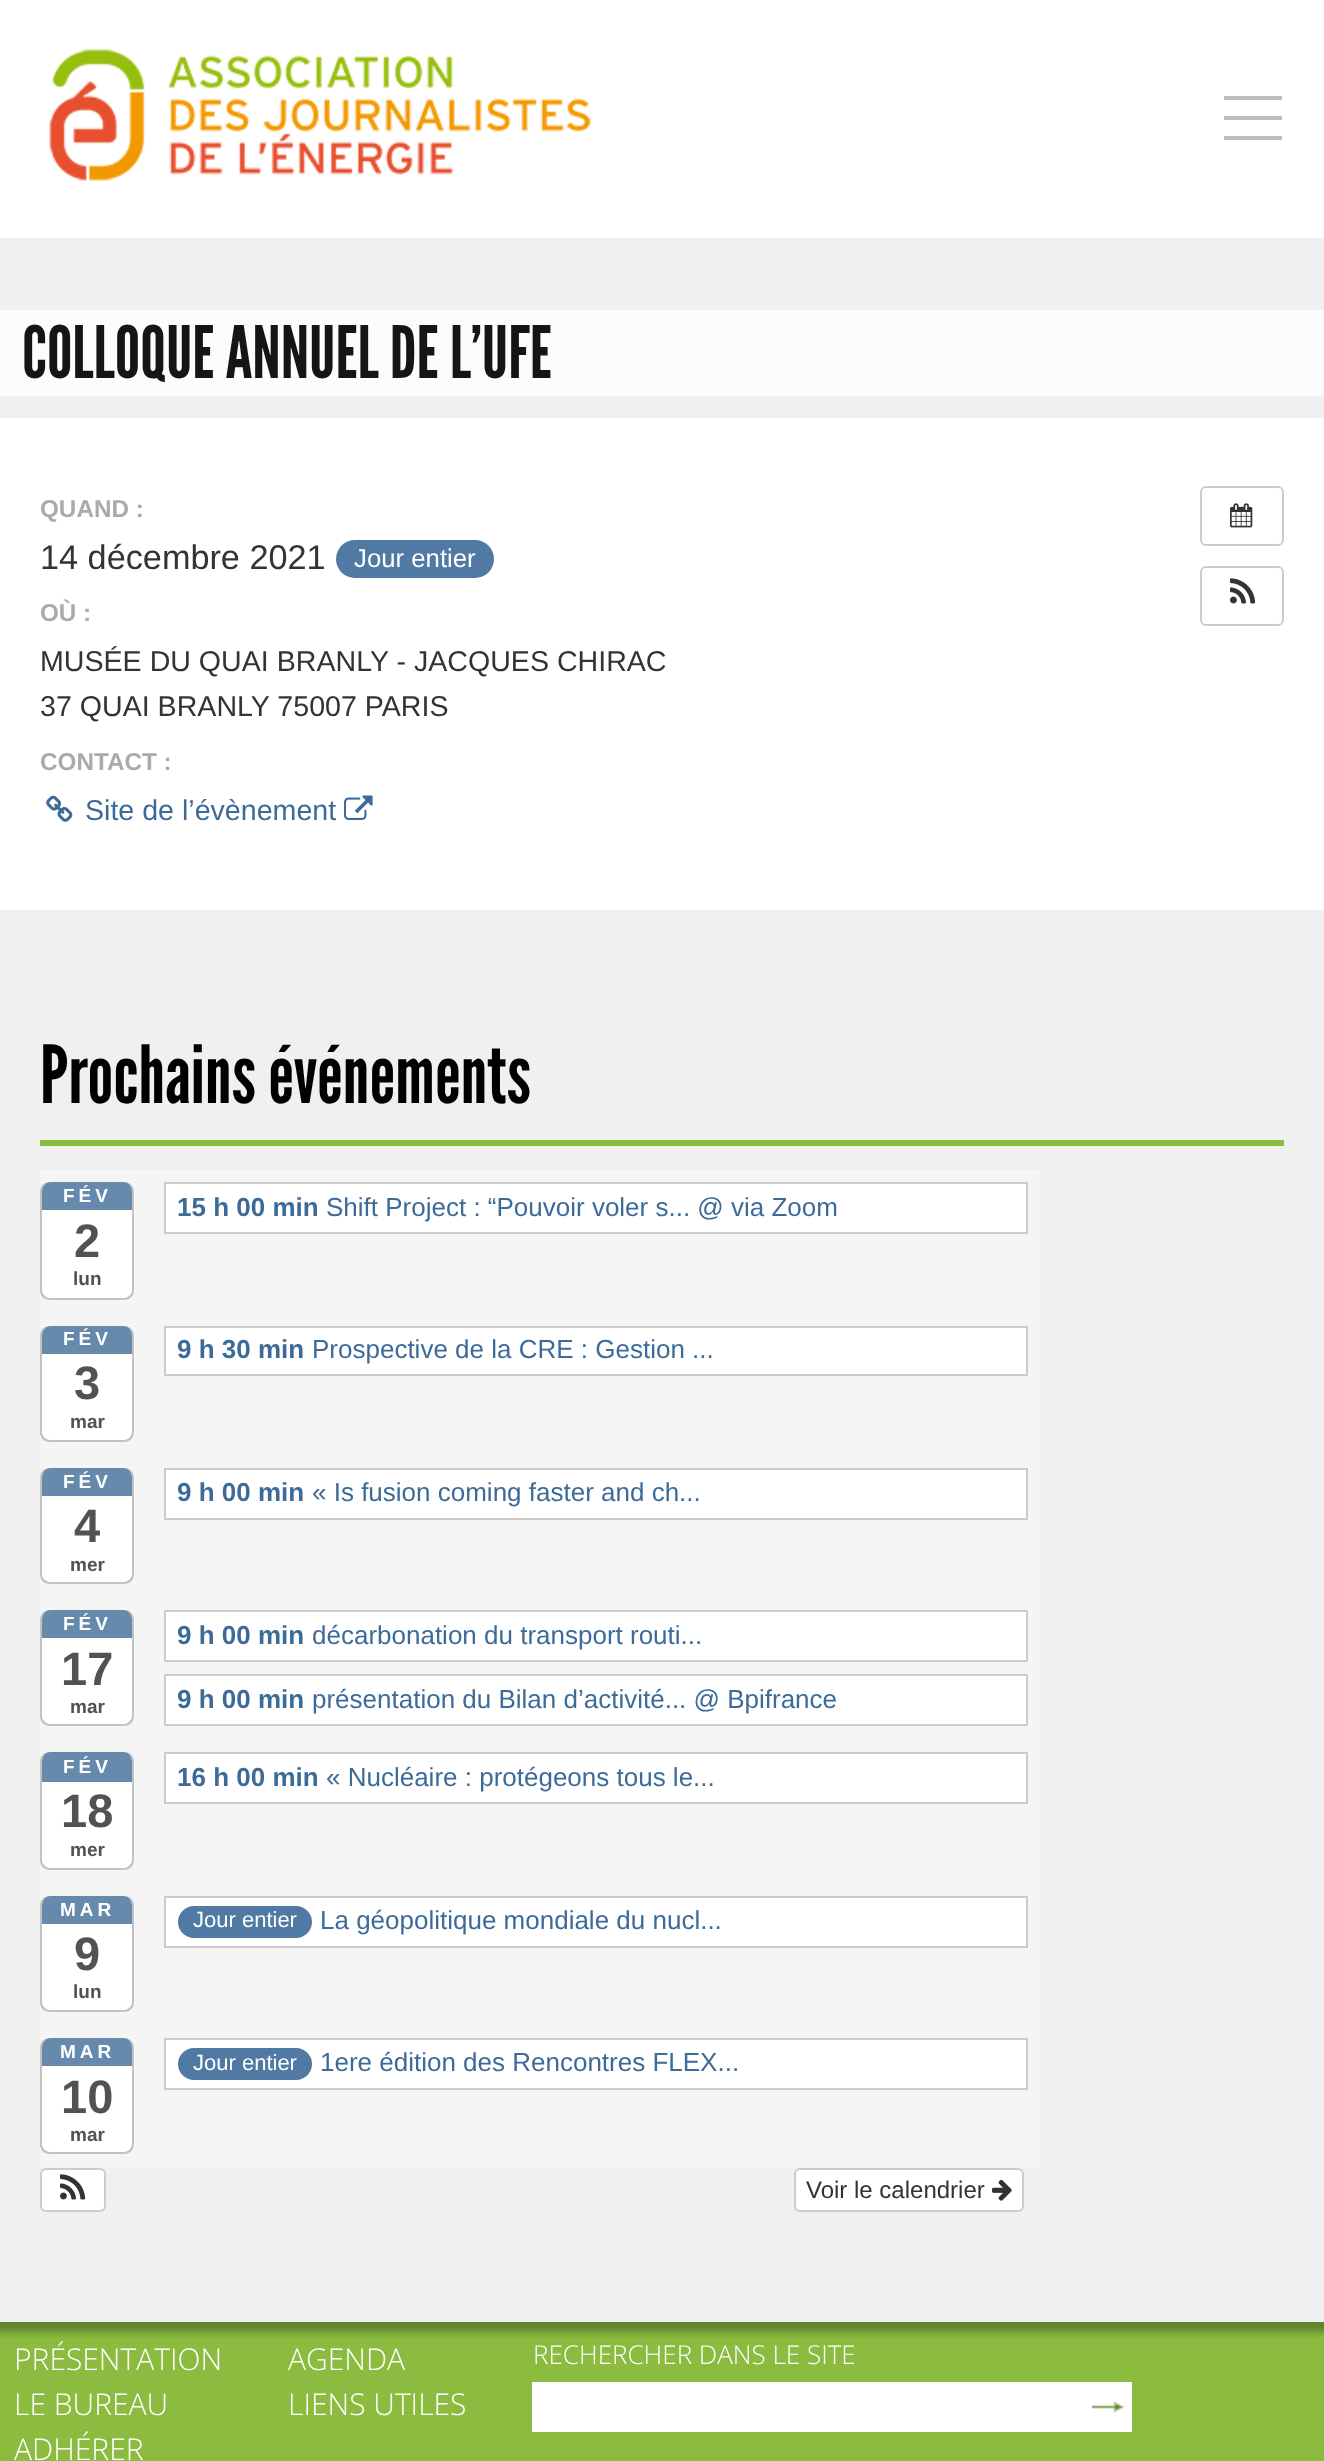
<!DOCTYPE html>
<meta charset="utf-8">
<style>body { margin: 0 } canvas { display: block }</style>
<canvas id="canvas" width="1324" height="2461"></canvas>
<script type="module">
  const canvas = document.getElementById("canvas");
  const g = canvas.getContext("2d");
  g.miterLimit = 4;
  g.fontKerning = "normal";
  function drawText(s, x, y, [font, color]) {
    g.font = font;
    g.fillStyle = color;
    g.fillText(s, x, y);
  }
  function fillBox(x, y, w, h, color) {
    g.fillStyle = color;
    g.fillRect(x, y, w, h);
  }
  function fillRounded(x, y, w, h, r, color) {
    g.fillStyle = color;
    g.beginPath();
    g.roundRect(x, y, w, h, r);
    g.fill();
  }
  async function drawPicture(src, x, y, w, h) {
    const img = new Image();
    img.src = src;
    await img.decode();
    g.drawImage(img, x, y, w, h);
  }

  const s1 = ["72px League Gothic", "#151515"];
  const s2 = ["bold 24.25px Liberation Sans", "#AAAAAA"];
  const s3 = ["34.25px Liberation Sans", "#333333"];
  const s4 = ["25.75px Liberation Sans", "#FFFFFF"];
  const s5 = ["28.6px Liberation Sans", "#333333"];
  const s6 = ["28.6px Liberation Sans", "#3D6B99"];
  const s7 = ["80px League Gothic", "#000000"];
  const s8 = ["bold 19px Liberation Sans", "#FFFFFF"];
  const s9 = ["bold 47px Liberation Sans", "#525252"];
  const s10 = ["bold 19px Liberation Sans", "#525252"];
  const s11 = ["bold 26px Liberation Sans", "#3D6B99"];
  const s12 = ["26px Liberation Sans", "#3D6B99"];
  const s13 = ["22px Liberation Sans", "#FFFFFF"];
  const s14 = ["24px Liberation Sans", "#333333"];
  const s15 = ["300 30px Open Sans", "#FFFFFF"];
  const s16 = ["300 26px Open Sans", "#FFFFFF"];

  fillBox(0, 0, 1324, 2461, "#F0F0F0");
  fillBox(0, 0, 1324, 238, "#FFFFFF");
  await drawPicture("pic1.png", 49, 49, 542, 132);
  fillBox(1224, 96, 58, 4, "#BEBCBF");
  fillBox(1224, 116, 58, 4, "#BEBCBF");
  fillBox(1224, 136, 58, 4, "#BEBCBF");
  fillBox(0, 310, 1324, 86, "#FCFCFC");
  drawText("COLLOQUE ANNUEL DE L’UFE", 22, 378, s1);
  fillBox(0, 418, 1324, 492, "#FFFFFF");
  drawText("QUAND :", 40, 517, s2);
  drawText("14 décembre 2021", 40, 569, s3);
  fillRounded(336, 540, 158, 38, 19, "#507AA3");
  drawText("Jour entier", 354, 567, s4);
  drawText("OÙ :", 40, 621, s2);
  drawText("MUSÉE DU QUAI BRANLY - JACQUES CHIRAC", 40, 671, s5);
  drawText("37 QUAI BRANLY 75007 PARIS", 40, 716, s5);
  drawText("CONTACT :", 40, 770, s2);
  await drawPicture("pic2.png", 46, 795, 27, 27);
  drawText("Site de l’évènement", 85, 820, s6);
  await drawPicture("pic3.png", 344, 795, 29, 25);
  g.beginPath();
  g.roundRect(1201, 487, 82, 58, 5);
  g.strokeStyle = "#CCCCCC";
  g.lineWidth = 2;
  g.stroke();
  await drawPicture("pic4.png", 1230, 503, 23, 25);
  g.beginPath();
  g.roundRect(1201, 567, 82, 58, 5);
  g.stroke();
  await drawPicture("pic5.png", 1230, 578, 26, 26);
  fillBox(40, 1140, 1244, 6, "#8BBB3F");
  drawText("Prochains événements", 40, 1103, s7);
  fillBox(40, 1170, 1000, 998, "#F5F5F5");
  fillRounded(40, 1182, 94, 118, 10, "#FFFFFF");
  g.fillStyle = "#C2C2C2";
  g.beginPath();
  g.moveTo(50, 1182);
  g.lineTo(124, 1182);
  g.bezierCurveTo(130, 1182, 134, 1186, 134, 1192);
  g.lineTo(134, 1290);
  g.bezierCurveTo(134, 1296, 130, 1300, 124, 1300);
  g.lineTo(50, 1300);
  g.bezierCurveTo(44, 1300, 40, 1296, 40, 1290);
  g.lineTo(40, 1192);
  g.bezierCurveTo(40, 1186, 44, 1182, 50, 1182);
  g.closePath();
  g.moveTo(50, 1182);
  g.lineTo(124, 1182);
  g.bezierCurveTo(128, 1182, 132, 1186, 132, 1192);
  g.lineTo(132, 1290);
  g.bezierCurveTo(132, 1294, 128, 1298, 124, 1298);
  g.lineTo(50, 1298);
  g.bezierCurveTo(46, 1298, 42, 1294, 42, 1290);
  g.lineTo(42, 1192);
  g.bezierCurveTo(42, 1186, 46, 1182, 50, 1182);
  g.closePath();
  g.fill("evenodd");
  g.fillStyle = "#6689AC";
  g.beginPath();
  g.moveTo(50, 1182);
  g.bezierCurveTo(46, 1182, 42, 1186, 42, 1192);
  g.lineTo(42, 1210);
  g.lineTo(132, 1210);
  g.lineTo(132, 1192);
  g.bezierCurveTo(132, 1186, 128, 1182, 124, 1182);
  g.closePath();
  g.fill();
  g.letterSpacing = "4px";
  drawText("FÉV", 63, 1202, s8);
  g.letterSpacing = "0px";
  drawText("2", 74, 1257, s9);
  drawText("lun", 73, 1285, s10);
  g.fillStyle = "#FFFFFF";
  g.beginPath();
  g.rect(165, 1183, 862, 50);
  g.fill();
  g.stroke();
  drawText("15 h 00 min", 177, 1216, s11);
  drawText("Shift Project : “Pouvoir voler s... @ via Zoom", 326, 1216, s12);
  fillRounded(40, 1326, 94, 116, 10, "#FFFFFF");
  g.fillStyle = "#C2C2C2";
  g.beginPath();
  g.moveTo(50, 1326);
  g.lineTo(124, 1326);
  g.bezierCurveTo(130, 1326, 134, 1330, 134, 1336);
  g.lineTo(134, 1432);
  g.bezierCurveTo(134, 1438, 130, 1442, 124, 1442);
  g.lineTo(50, 1442);
  g.bezierCurveTo(44, 1442, 40, 1438, 40, 1432);
  g.lineTo(40, 1336);
  g.bezierCurveTo(40, 1330, 44, 1326, 50, 1326);
  g.closePath();
  g.moveTo(50, 1326);
  g.lineTo(124, 1326);
  g.bezierCurveTo(128, 1326, 132, 1330, 132, 1336);
  g.lineTo(132, 1432);
  g.bezierCurveTo(132, 1436, 128, 1440, 124, 1440);
  g.lineTo(50, 1440);
  g.bezierCurveTo(46, 1440, 42, 1436, 42, 1432);
  g.lineTo(42, 1336);
  g.bezierCurveTo(42, 1330, 46, 1326, 50, 1326);
  g.closePath();
  g.fill("evenodd");
  g.fillStyle = "#6689AC";
  g.beginPath();
  g.moveTo(50, 1326);
  g.bezierCurveTo(46, 1326, 42, 1330, 42, 1336);
  g.lineTo(42, 1354);
  g.lineTo(132, 1354);
  g.lineTo(132, 1336);
  g.bezierCurveTo(132, 1330, 128, 1326, 124, 1326);
  g.closePath();
  g.fill();
  g.letterSpacing = "4px";
  drawText("FÉV", 63, 1345, s8);
  g.letterSpacing = "0px";
  drawText("3", 74, 1399, s9);
  drawText("mar", 70, 1428, s10);
  g.fillStyle = "#FFFFFF";
  g.beginPath();
  g.rect(165, 1327, 862, 48);
  g.fill();
  g.stroke();
  drawText("9 h 30 min", 177, 1358, s11);
  drawText("Prospective de la CRE : Gestion ...", 312, 1358, s12);
  fillRounded(40, 1468, 94, 116, 10, "#FFFFFF");
  g.fillStyle = "#C2C2C2";
  g.beginPath();
  g.moveTo(50, 1468);
  g.lineTo(124, 1468);
  g.bezierCurveTo(130, 1468, 134, 1472, 134, 1478);
  g.lineTo(134, 1574);
  g.bezierCurveTo(134, 1580, 130, 1584, 124, 1584);
  g.lineTo(50, 1584);
  g.bezierCurveTo(44, 1584, 40, 1580, 40, 1574);
  g.lineTo(40, 1478);
  g.bezierCurveTo(40, 1472, 44, 1468, 50, 1468);
  g.closePath();
  g.moveTo(50, 1468);
  g.lineTo(124, 1468);
  g.bezierCurveTo(128, 1468, 132, 1472, 132, 1478);
  g.lineTo(132, 1574);
  g.bezierCurveTo(132, 1578, 128, 1582, 124, 1582);
  g.lineTo(50, 1582);
  g.bezierCurveTo(46, 1582, 42, 1578, 42, 1574);
  g.lineTo(42, 1478);
  g.bezierCurveTo(42, 1472, 46, 1468, 50, 1468);
  g.closePath();
  g.fill("evenodd");
  g.fillStyle = "#6689AC";
  g.beginPath();
  g.moveTo(50, 1468);
  g.bezierCurveTo(46, 1468, 42, 1472, 42, 1478);
  g.lineTo(42, 1496);
  g.lineTo(132, 1496);
  g.lineTo(132, 1478);
  g.bezierCurveTo(132, 1472, 128, 1468, 124, 1468);
  g.closePath();
  g.fill();
  g.letterSpacing = "4px";
  drawText("FÉV", 63, 1488, s8);
  g.letterSpacing = "0px";
  drawText("4", 74, 1542, s9);
  drawText("mer", 70, 1571, s10);
  g.fillStyle = "#FFFFFF";
  g.beginPath();
  g.rect(165, 1469, 862, 50);
  g.fill();
  g.stroke();
  drawText("9 h 00 min", 177, 1501, s11);
  drawText("« Is fusion coming faster and ch...", 312, 1501, s12);
  fillRounded(40, 1610, 94, 116, 10, "#FFFFFF");
  g.fillStyle = "#C2C2C2";
  g.beginPath();
  g.moveTo(50, 1610);
  g.lineTo(124, 1610);
  g.bezierCurveTo(130, 1610, 134, 1614, 134, 1620);
  g.lineTo(134, 1716);
  g.bezierCurveTo(134, 1722, 130, 1726, 124, 1726);
  g.lineTo(50, 1726);
  g.bezierCurveTo(44, 1726, 40, 1722, 40, 1716);
  g.lineTo(40, 1620);
  g.bezierCurveTo(40, 1614, 44, 1610, 50, 1610);
  g.closePath();
  g.moveTo(50, 1610);
  g.lineTo(124, 1610);
  g.bezierCurveTo(128, 1610, 132, 1614, 132, 1620);
  g.lineTo(132, 1716);
  g.bezierCurveTo(132, 1720, 128, 1724, 124, 1724);
  g.lineTo(50, 1724);
  g.bezierCurveTo(46, 1724, 42, 1720, 42, 1716);
  g.lineTo(42, 1620);
  g.bezierCurveTo(42, 1614, 46, 1610, 50, 1610);
  g.closePath();
  g.fill("evenodd");
  g.fillStyle = "#6689AC";
  g.beginPath();
  g.moveTo(50, 1610);
  g.bezierCurveTo(46, 1610, 42, 1614, 42, 1620);
  g.lineTo(42, 1638);
  g.lineTo(132, 1638);
  g.lineTo(132, 1620);
  g.bezierCurveTo(132, 1614, 128, 1610, 124, 1610);
  g.closePath();
  g.fill();
  g.letterSpacing = "4px";
  drawText("FÉV", 63, 1630, s8);
  g.letterSpacing = "0px";
  drawText("17", 61, 1685, s9);
  drawText("mar", 70, 1713, s10);
  g.fillStyle = "#FFFFFF";
  g.beginPath();
  g.rect(165, 1611, 862, 50);
  g.fill();
  g.stroke();
  drawText("9 h 00 min", 177, 1644, s11);
  drawText("décarbonation du transport routi...", 312, 1644, s12);
  g.fillStyle = "#FFFFFF";
  g.beginPath();
  g.rect(165, 1675, 862, 50);
  g.fill();
  g.stroke();
  drawText("9 h 00 min", 177, 1708, s11);
  drawText("présentation du Bilan d’activité... @ Bpifrance", 312, 1708, s12);
  fillRounded(40, 1752, 94, 118, 10, "#FFFFFF");
  g.fillStyle = "#C2C2C2";
  g.beginPath();
  g.moveTo(50, 1752);
  g.lineTo(124, 1752);
  g.bezierCurveTo(130, 1752, 134, 1756, 134, 1762);
  g.lineTo(134, 1860);
  g.bezierCurveTo(134, 1866, 130, 1870, 124, 1870);
  g.lineTo(50, 1870);
  g.bezierCurveTo(44, 1870, 40, 1866, 40, 1860);
  g.lineTo(40, 1762);
  g.bezierCurveTo(40, 1756, 44, 1752, 50, 1752);
  g.closePath();
  g.moveTo(50, 1752);
  g.lineTo(124, 1752);
  g.bezierCurveTo(128, 1752, 132, 1756, 132, 1762);
  g.lineTo(132, 1860);
  g.bezierCurveTo(132, 1864, 128, 1868, 124, 1868);
  g.lineTo(50, 1868);
  g.bezierCurveTo(46, 1868, 42, 1864, 42, 1860);
  g.lineTo(42, 1762);
  g.bezierCurveTo(42, 1756, 46, 1752, 50, 1752);
  g.closePath();
  g.fill("evenodd");
  g.fillStyle = "#6689AC";
  g.beginPath();
  g.moveTo(50, 1752);
  g.bezierCurveTo(46, 1752, 42, 1756, 42, 1762);
  g.lineTo(42, 1782);
  g.lineTo(132, 1782);
  g.lineTo(132, 1762);
  g.bezierCurveTo(132, 1756, 128, 1752, 124, 1752);
  g.closePath();
  g.fill();
  g.letterSpacing = "4px";
  drawText("FÉV", 63, 1773, s8);
  g.letterSpacing = "0px";
  drawText("18", 61, 1827, s9);
  drawText("mer", 70, 1856, s10);
  g.fillStyle = "#FFFFFF";
  g.beginPath();
  g.rect(165, 1753, 862, 50);
  g.fill();
  g.stroke();
  drawText("16 h 00 min", 177, 1786, s11);
  drawText("« Nucléaire : protégeons tous le...", 326, 1786, s12);
  fillRounded(40, 1896, 94, 116, 10, "#FFFFFF");
  g.fillStyle = "#C2C2C2";
  g.beginPath();
  g.moveTo(50, 1896);
  g.lineTo(124, 1896);
  g.bezierCurveTo(130, 1896, 134, 1900, 134, 1906);
  g.lineTo(134, 2002);
  g.bezierCurveTo(134, 2008, 130, 2012, 124, 2012);
  g.lineTo(50, 2012);
  g.bezierCurveTo(44, 2012, 40, 2008, 40, 2002);
  g.lineTo(40, 1906);
  g.bezierCurveTo(40, 1900, 44, 1896, 50, 1896);
  g.closePath();
  g.moveTo(50, 1896);
  g.lineTo(124, 1896);
  g.bezierCurveTo(128, 1896, 132, 1900, 132, 1906);
  g.lineTo(132, 2002);
  g.bezierCurveTo(132, 2006, 128, 2010, 124, 2010);
  g.lineTo(50, 2010);
  g.bezierCurveTo(46, 2010, 42, 2006, 42, 2002);
  g.lineTo(42, 1906);
  g.bezierCurveTo(42, 1900, 46, 1896, 50, 1896);
  g.closePath();
  g.fill("evenodd");
  g.fillStyle = "#6689AC";
  g.beginPath();
  g.moveTo(50, 1896);
  g.bezierCurveTo(46, 1896, 42, 1900, 42, 1906);
  g.lineTo(42, 1924);
  g.lineTo(132, 1924);
  g.lineTo(132, 1906);
  g.bezierCurveTo(132, 1900, 128, 1896, 124, 1896);
  g.closePath();
  g.fill();
  g.letterSpacing = "4px";
  drawText("MAR", 60, 1916, s8);
  g.letterSpacing = "0px";
  drawText("9", 74, 1970, s9);
  drawText("lun", 73, 1998, s10);
  g.fillStyle = "#FFFFFF";
  g.beginPath();
  g.rect(165, 1897, 862, 50);
  g.fill();
  g.stroke();
  fillRounded(178, 1906, 134, 32, 16, "#507AA3");
  drawText("Jour entier", 193, 1927, s13);
  drawText("La géopolitique mondiale du nucl...", 320, 1929, s12);
  fillRounded(40, 2038, 94, 116, 10, "#FFFFFF");
  g.fillStyle = "#C2C2C2";
  g.beginPath();
  g.moveTo(50, 2038);
  g.lineTo(124, 2038);
  g.bezierCurveTo(130, 2038, 134, 2042, 134, 2048);
  g.lineTo(134, 2144);
  g.bezierCurveTo(134, 2150, 130, 2154, 124, 2154);
  g.lineTo(50, 2154);
  g.bezierCurveTo(44, 2154, 40, 2150, 40, 2144);
  g.lineTo(40, 2048);
  g.bezierCurveTo(40, 2042, 44, 2038, 50, 2038);
  g.closePath();
  g.moveTo(50, 2038);
  g.lineTo(124, 2038);
  g.bezierCurveTo(128, 2038, 132, 2042, 132, 2048);
  g.lineTo(132, 2144);
  g.bezierCurveTo(132, 2148, 128, 2152, 124, 2152);
  g.lineTo(50, 2152);
  g.bezierCurveTo(46, 2152, 42, 2148, 42, 2144);
  g.lineTo(42, 2048);
  g.bezierCurveTo(42, 2042, 46, 2038, 50, 2038);
  g.closePath();
  g.fill("evenodd");
  g.fillStyle = "#6689AC";
  g.beginPath();
  g.moveTo(50, 2038);
  g.bezierCurveTo(46, 2038, 42, 2042, 42, 2048);
  g.lineTo(42, 2066);
  g.lineTo(132, 2066);
  g.lineTo(132, 2048);
  g.bezierCurveTo(132, 2042, 128, 2038, 124, 2038);
  g.closePath();
  g.fill();
  g.letterSpacing = "4px";
  drawText("MAR", 60, 2058, s8);
  g.letterSpacing = "0px";
  drawText("10", 61, 2113, s9);
  drawText("mar", 70, 2141, s10);
  g.fillStyle = "#FFFFFF";
  g.beginPath();
  g.rect(165, 2039, 862, 50);
  g.fill();
  g.stroke();
  fillRounded(178, 2048, 134, 32, 16, "#507AA3");
  drawText("Jour entier", 193, 2070, s13);
  drawText("1ere édition des Rencontres FLEX...", 320, 2071, s12);
  g.fillStyle = "#FFFFFF";
  g.beginPath();
  g.roundRect(41, 2169, 64, 42, 5);
  g.fill();
  g.stroke();
  await drawPicture("pic5.png", 60, 2174, 26, 26);
  g.beginPath();
  g.roundRect(795, 2169, 228, 42, 5);
  g.fill();
  g.stroke();
  drawText("Voir le calendrier", 806, 2198, s14);
  await drawPicture("pic6.png", 992, 2179, 20, 22);
  fillBox(0, 2338, 1324, 123, "#8BBB3F");
  await drawPicture("pic7.png", 0, 2322, 1324, 16);
  drawText("PRÉSENTATION", 14, 2370, s15);
  drawText("LE BUREAU", 14, 2415, s15);
  drawText("ADHÉRER", 14, 2460, s15);
  drawText("AGENDA", 288, 2370, s15);
  drawText("LIENS UTILES", 288, 2415, s15);
  drawText("RECHERCHER DANS LE SITE", 533, 2364, s16);
  fillBox(532, 2382, 600, 50, "#FFFFFF");
  await drawPicture("pic8.png", 1092, 2401, 33, 12);
</script>
